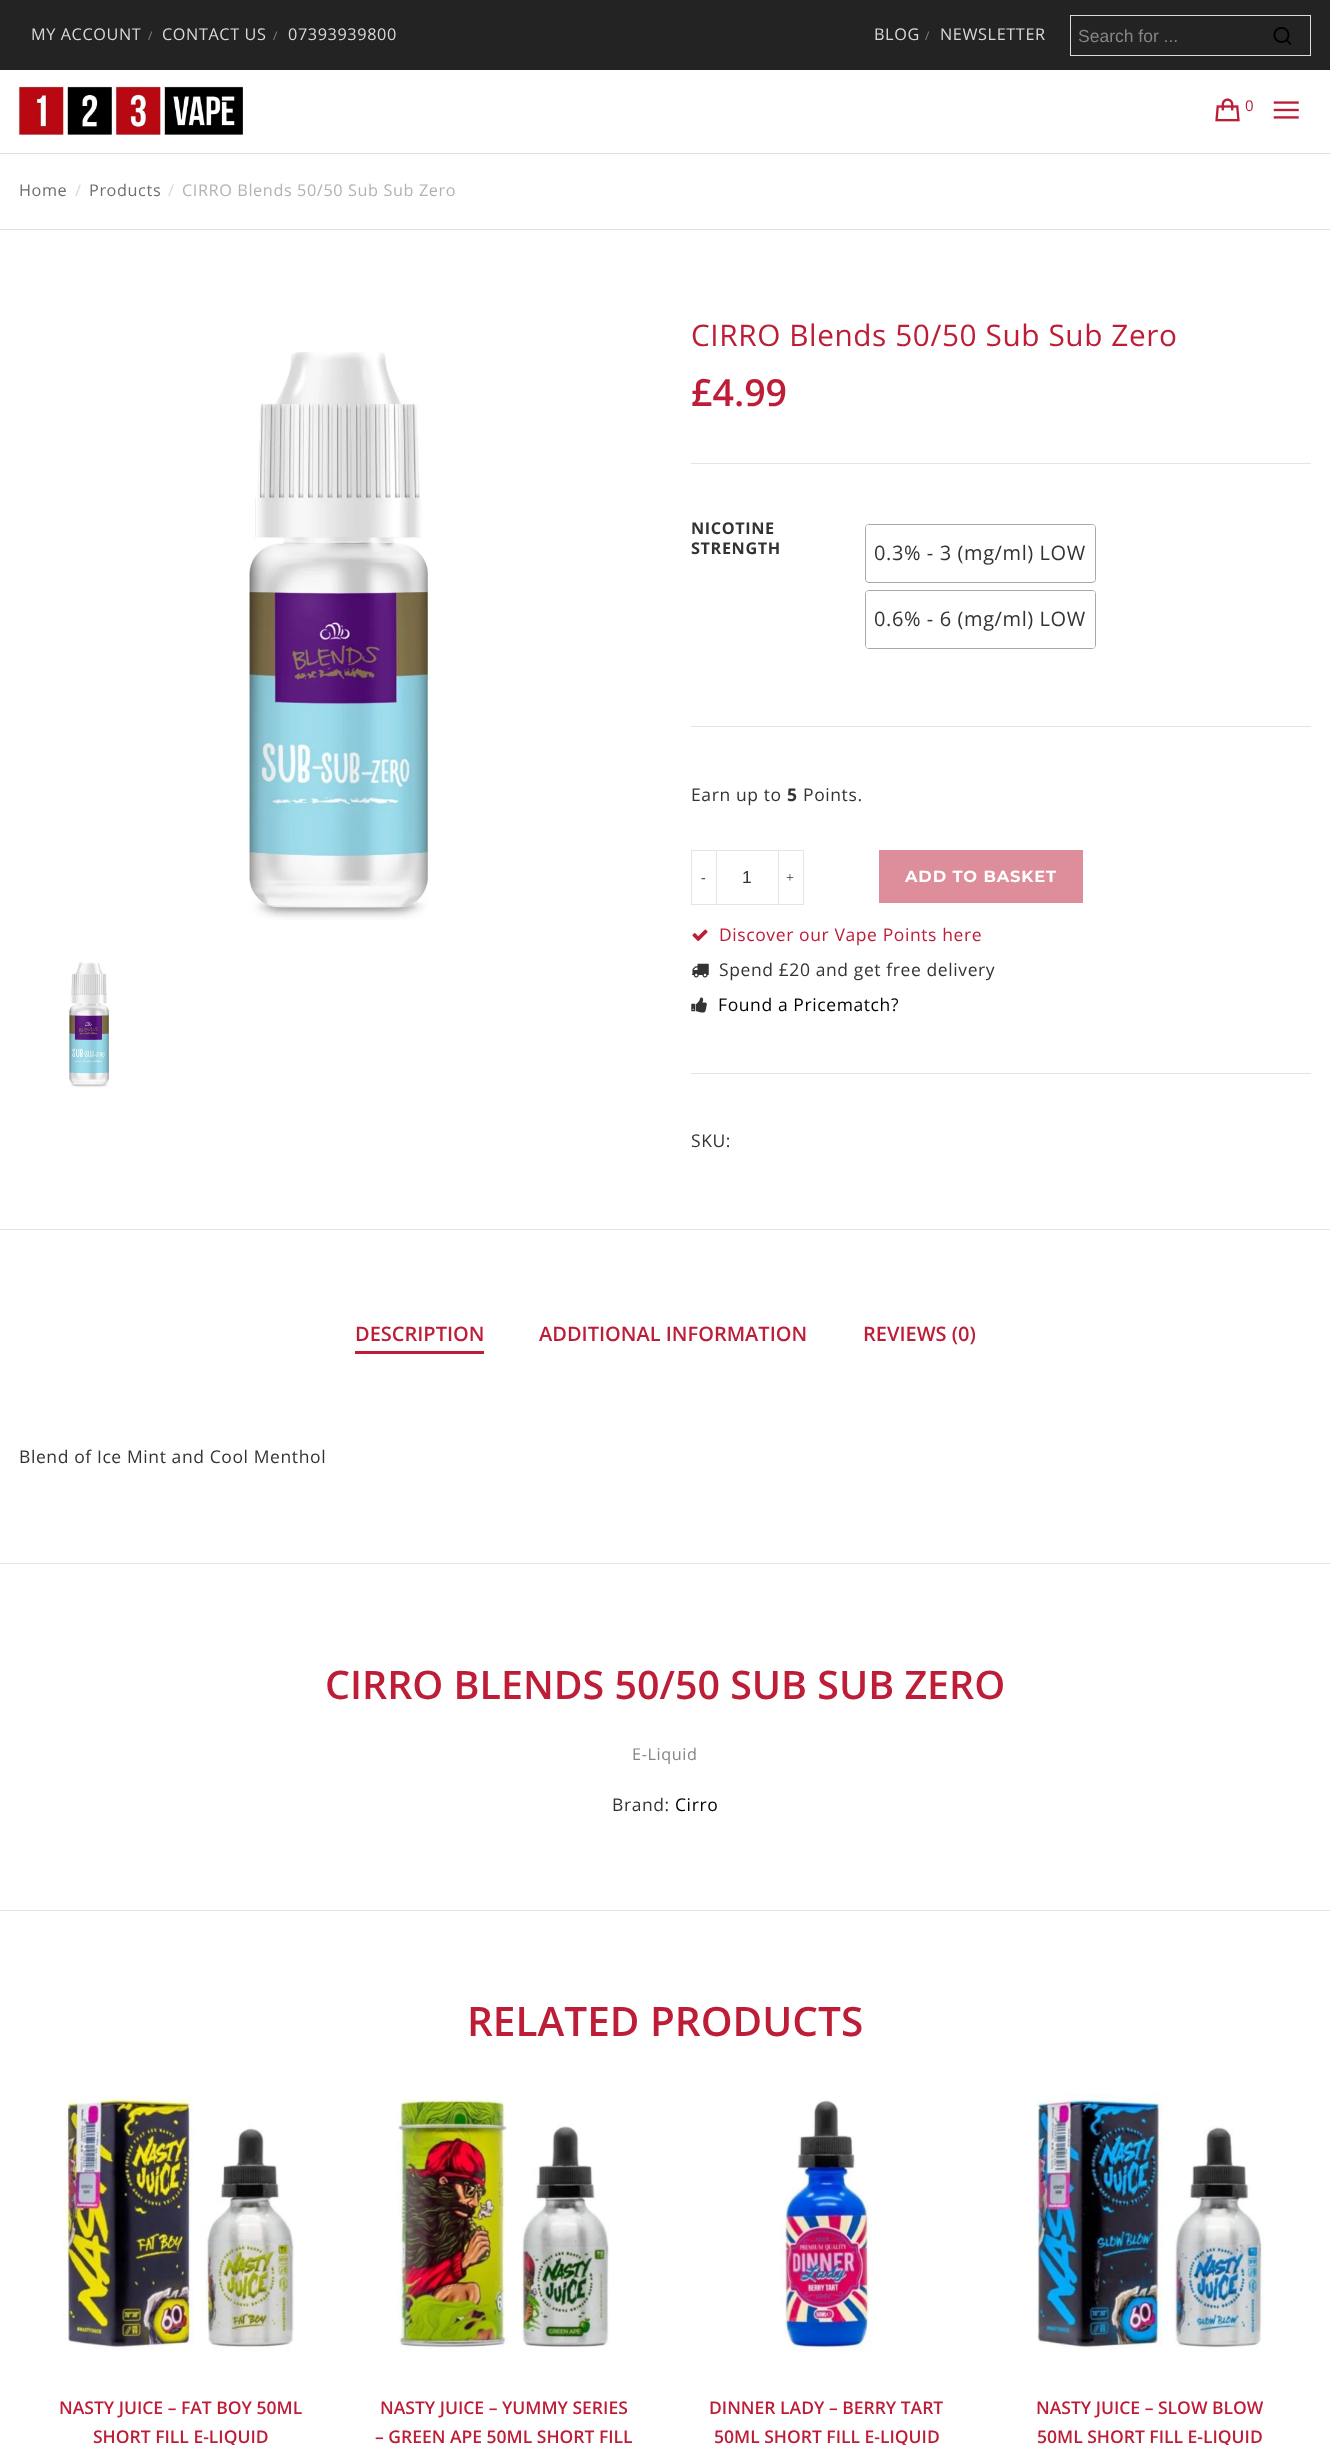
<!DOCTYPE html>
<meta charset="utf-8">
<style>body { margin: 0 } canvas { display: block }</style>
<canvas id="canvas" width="1330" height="2445"></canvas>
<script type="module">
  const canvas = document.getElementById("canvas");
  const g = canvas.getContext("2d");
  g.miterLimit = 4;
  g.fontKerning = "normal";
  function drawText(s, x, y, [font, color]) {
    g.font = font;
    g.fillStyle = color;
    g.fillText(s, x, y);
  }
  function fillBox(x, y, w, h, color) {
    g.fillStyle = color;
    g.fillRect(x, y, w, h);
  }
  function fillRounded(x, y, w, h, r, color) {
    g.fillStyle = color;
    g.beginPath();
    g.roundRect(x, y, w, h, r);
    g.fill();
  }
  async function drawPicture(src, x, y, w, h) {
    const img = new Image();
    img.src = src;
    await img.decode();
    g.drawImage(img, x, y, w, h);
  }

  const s1 = ["16.25px Open Sans", "#D9D9D9"];
  const s2 = ["12px Open Sans", "#858585"];
  const s3 = ["17.5px Liberation Sans", "#858585"];
  const s4 = ["15px Open Sans", "#BD1D37"];
  const s5 = ["16.25px Open Sans", "#6E6E6E"];
  const s6 = ["16.25px Open Sans", "#B2B2B2"];
  const s7 = ["29.75px Open Sans", "#BD1D37"];
  const s8 = ["600 37.5px Open Sans", "#BD1D37"];
  const s9 = ["bold 16.25px Open Sans", "#333333"];
  const s10 = ["20px Open Sans", "#333333"];
  const s11 = ["17.5px Open Sans", "#333333"];
  const s12 = ["bold 17.5px Open Sans", "#333333"];
  const s13 = ["14px Liberation Serif", "#333333"];
  const s14 = ["17.5px Liberation Sans", "#333333"];
  const s15 = ["100 16.25px Montserrat", "#FFFFFF"];
  const s16 = ["17.5px Open Sans", "#BD1D37"];
  const s17 = ["17.5px Open Sans", "#000000"];
  const s18 = ["600 20px Open Sans", "#BD1D37"];
  const s19 = ["600 39.4px Open Sans", "#BD1D37"];
  const s20 = ["16.25px Open Sans", "#858585"];
  const s21 = ["600 40.5px Open Sans", "#BD1D37"];
  const s22 = ["600 17.5px Open Sans", "#BD1D37"];

  fillBox(0, 0, 1330, 2445, "#FFFFFF");
  fillBox(0, 0, 1330, 70, "#232323");
  g.letterSpacing = "0.6px";
  drawText("MY ACCOUNT", 31, 40, s1);
  drawText("/", 148, 40, s2);
  drawText("CONTACT US", 162, 40, s1);
  drawText("/", 273, 40, s2);
  drawText("07393939800", 288, 40, s1);
  drawText("BLOG", 874, 40, s1);
  drawText("/", 925, 40, s2);
  drawText("NEWSLETTER", 940, 40, s1);
  g.strokeStyle = "#DDDDDD";
  g.strokeRect(1070.5, 15.5, 240, 40);
  g.letterSpacing = "0px";
  drawText("Search for ...", 1078, 42, s3);
  await drawPicture("pic1.png", 1273, 27, 19, 18);
  await drawPicture("pic2.png", 18, 85, 225, 51);
  await drawPicture("pic3.png", 1215, 98, 25, 24);
  g.letterSpacing = "0.6px";
  drawText("0", 1245, 111, s4);
  await drawPicture("pic4.png", 1273, 101, 26, 18);
  fillBox(0, 153, 1330, 1, "#E0E0E0");
  fillBox(0, 229, 1330, 1, "#E0E0E0");
  drawText("Home", 19, 196, s5);
  drawText("/", 75, 196, s1);
  drawText("Products", 89, 196, s5);
  drawText("/", 168, 196, s1);
  drawText("CIRRO Blends 50/50 Sub Sub Zero", 182, 196, s6);
  await drawPicture("pic5.png", 248, 352, 182, 568);
  await drawPicture("pic6.png", 69, 962, 40, 126);
  drawText("CIRRO Blends 50/50 Sub Sub Zero", 691, 346, s7);
  g.letterSpacing = "0px";
  drawText("£4.99", 691, 406, s8);
  fillBox(691, 463, 620, 1, "#E4E4E4");
  g.letterSpacing = "0.6px";
  drawText("NICOTINE", 691, 534, s9);
  drawText("STRENGTH", 691, 554, s9);
  g.beginPath();
  g.roundRect(865.5, 524.5, 230, 58, 3.5);
  g.strokeStyle = "#A8A8A8";
  g.stroke();
  fillRounded(866, 525, 229, 56, 2.5, "#FFFFFF");
  drawText("0.3% - 3 (mg/ml) LOW", 874, 560, s10);
  g.beginPath();
  g.roundRect(865.5, 590.5, 230, 58, 3.5);
  g.stroke();
  fillRounded(866, 591, 229, 57, 2.5, "#FFFFFF");
  drawText("0.6% - 6 (mg/ml) LOW", 874, 626, s10);
  fillBox(691, 726, 620, 1, "#E4E4E4");
  drawText("Earn up to", 691, 801, s11);
  drawText("5", 787, 801, s12);
  drawText("Points.", 803, 801, s11);
  fillBox(691, 850, 25, 1, "#E4E4E4");
  fillBox(691, 904, 25, 1, "#E4E4E4");
  fillBox(691, 850, 1, 55, "#E4E4E4");
  g.letterSpacing = "0.9px";
  drawText("-", 701, 882, s13);
  g.strokeStyle = "#E4E4E4";
  g.strokeRect(716.5, 850.5, 62, 54);
  g.letterSpacing = "0px";
  drawText("1", 742, 883, s14);
  fillBox(779, 850, 25, 1, "#E4E4E4");
  fillBox(803, 850, 1, 55, "#E4E4E4");
  fillBox(779, 904, 25, 1, "#E4E4E4");
  g.letterSpacing = "0.9px";
  drawText("+", 786, 882, s13);
  fillBox(879, 850, 204, 53, "#DE8E9B");
  drawText("ADD TO BASKET", 905, 882, s15);
  await drawPicture("pic7.png", 692, 929, 16, 13);
  g.letterSpacing = "0.6px";
  drawText("Discover our Vape Points here", 719, 941, s16);
  await drawPicture("pic8.png", 691, 963, 18, 15);
  drawText("Spend £20 and get free delivery", 719, 976, s11);
  await drawPicture("pic9.png", 691, 997, 16, 16);
  drawText("Found a Pricematch?", 718, 1011, s17);
  fillBox(691, 1073, 620, 1, "#E4E4E4");
  drawText("SKU:", 691, 1147, s11);
  fillBox(0, 1229, 1330, 1, "#E4E4E4");
  g.letterSpacing = "0px";
  drawText("DESCRIPTION", 355, 1341, s18);
  fillBox(355, 1351, 129, 3, "#BD1D37");
  drawText("ADDITIONAL INFORMATION", 539, 1341, s18);
  drawText("REVIEWS (0)", 863, 1341, s18);
  g.letterSpacing = "0.6px";
  drawText("Blend of Ice Mint and Cool Menthol", 19, 1463, s11);
  fillBox(0, 1563, 1330, 1, "#E4E4E4");
  g.letterSpacing = "0px";
  drawText("CIRRO BLENDS 50/50 SUB SUB ZERO", 325, 1699, s19);
  g.letterSpacing = "0.6px";
  drawText("E-Liquid", 632, 1760, s20);
  drawText("Brand:", 612, 1811, s11);
  drawText("Cirro", 675, 1811, s17);
  fillBox(0, 1910, 1330, 1, "#E4E4E4");
  g.letterSpacing = "0px";
  drawText("RELATED PRODUCTS", 467, 2036, s21);
  await drawPicture("pic10.png", 62, 2094, 233, 259);
  drawText("NASTY JUICE – FAT BOY 50ML", 59, 2414, s22);
  drawText("SHORT FILL E-LIQUID", 93, 2443, s22);
  await drawPicture("pic11.png", 396, 2094, 214, 255);
  drawText("NASTY JUICE – YUMMY SERIES", 380, 2414, s22);
  drawText("– GREEN APE 50ML SHORT FILL", 375, 2443, s22);
  await drawPicture("pic12.png", 780, 2100, 93, 254);
  drawText("DINNER LADY – BERRY TART", 709, 2414, s22);
  drawText("50ML SHORT FILL E-LIQUID", 714, 2443, s22);
  await drawPicture("pic13.png", 1033, 2094, 231, 255);
  drawText("NASTY JUICE – SLOW BLOW", 1036, 2414, s22);
  drawText("50ML SHORT FILL E-LIQUID", 1037, 2443, s22);
</script>
